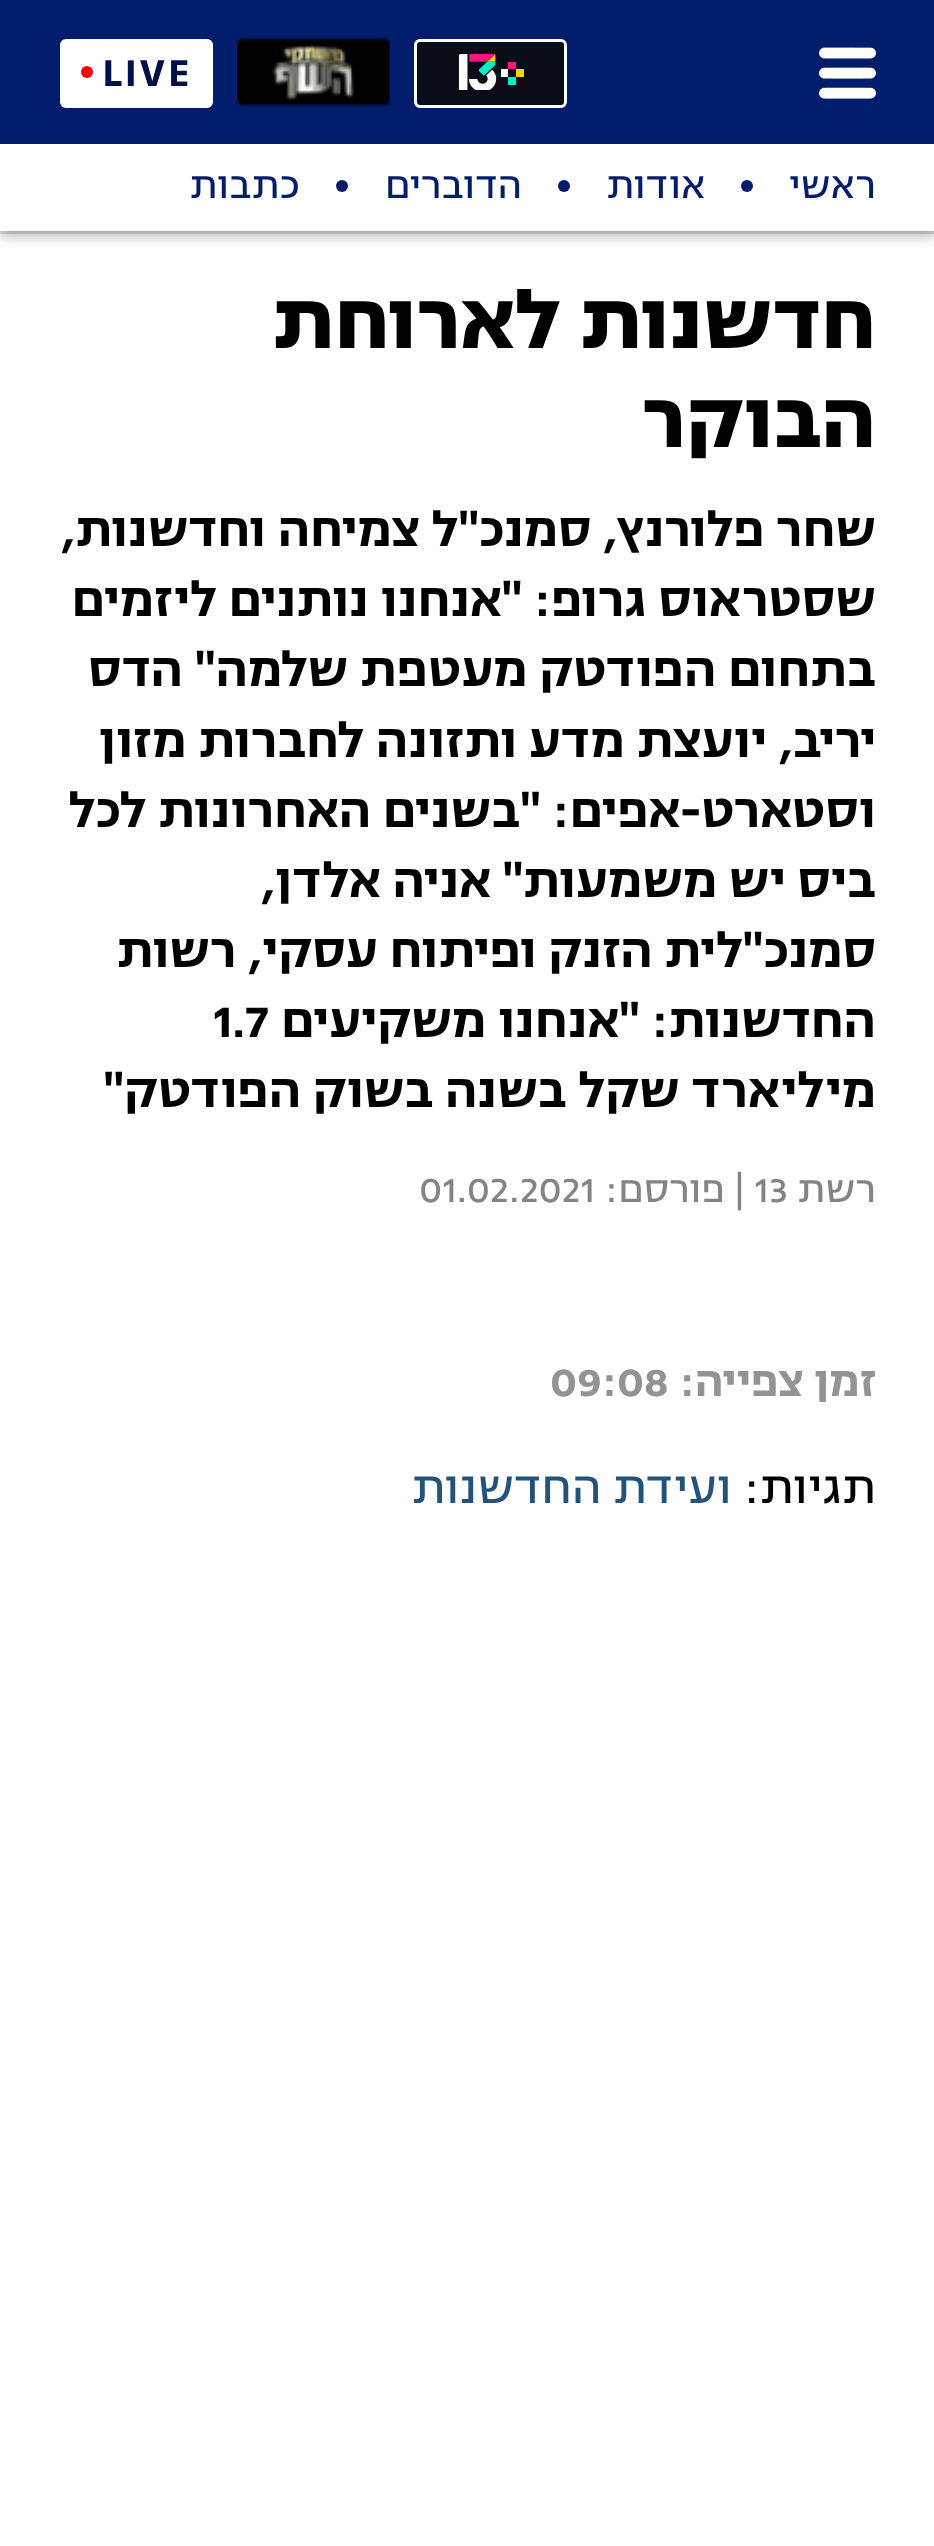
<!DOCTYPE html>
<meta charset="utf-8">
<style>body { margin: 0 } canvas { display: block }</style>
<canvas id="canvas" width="934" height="2546"></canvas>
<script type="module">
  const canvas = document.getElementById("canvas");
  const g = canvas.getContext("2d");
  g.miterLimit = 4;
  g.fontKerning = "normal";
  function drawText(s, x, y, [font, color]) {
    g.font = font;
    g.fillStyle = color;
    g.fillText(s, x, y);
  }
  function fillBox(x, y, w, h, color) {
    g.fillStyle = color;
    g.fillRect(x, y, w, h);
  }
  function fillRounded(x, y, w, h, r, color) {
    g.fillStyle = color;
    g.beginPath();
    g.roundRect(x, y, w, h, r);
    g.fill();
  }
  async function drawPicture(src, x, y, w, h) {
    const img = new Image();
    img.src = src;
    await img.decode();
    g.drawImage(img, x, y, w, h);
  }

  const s1 = ["600 45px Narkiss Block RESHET", "#00104A"];
  const s2 = ["42px Narkiss Block RESHET", "#011D6B"];
  const s3 = ["bold 90px Narkiss Block RESHET", "#000000"];
  const s4 = ["600 54px Narkiss Block RESHET", "#000000"];
  const s5 = ["42px Narkiss Block RESHET", "#848484"];
  const s6 = ["600 48px Narkiss Block RESHET", "#939393"];
  const s7 = ["51px Narkiss Block RESHET", "#000000"];
  const s8 = ["51px Narkiss Block RESHET", "#23527C"];

  fillBox(0, 0, 934, 2546, "#FFFFFF");
  fillBox(0, 231, 934, 3, "#DFDFDF");
  g.fillStyle = "rgba(0, 0, 0, 0.25)";
  g.filter = "blur(6px)";
  g.beginPath();
  g.rect(0, 6, 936, 231);
  g.fill();
  g.filter = "none";
  fillBox(0, 0, 934, 144, "#011D6B");
  await drawPicture("pic1.png", 819, 47, 57, 52);
  g.fillStyle = "#0A0C18";
  g.beginPath();
  g.roundRect(415.5, 40.5, 150, 66, 4.5);
  g.fill();
  g.strokeStyle = "#FFFFFF";
  g.lineWidth = 3;
  g.stroke();
  await drawPicture("pic2.png", 458, 54, 66, 36);
  await drawPicture("pic3.png", 237, 37, 153, 70);
  fillRounded(60, 39, 153, 69, 6, "#FFFFFF");
  g.letterSpacing = "2px";
  drawText("LIVE", 102, 86, s1);
  g.fillStyle = "#FF0000";
  g.beginPath();
  g.arc(87, 72, 6, 0, Math.PI * 2);
  g.fill();
  fillBox(0, 144, 934, 87, "#FFFFFF");
  g.letterSpacing = "0px";
  g.direction = "rtl";
  drawText("ראשי", 876, 198, s2);
  g.beginPath();
  g.arc(747, 186, 6, 0, Math.PI * 2);
  g.fill();
  drawText("אודות", 705, 198, s2);
  g.beginPath();
  g.arc(564, 186, 6, 0, Math.PI * 2);
  g.fill();
  drawText("הדוברים", 522, 198, s2);
  g.beginPath();
  g.arc(342, 186, 6, 0, Math.PI * 2);
  g.fill();
  drawText("כתבות", 300, 198, s2);
  drawText("חדשנות לארוחת", 876, 348, s3);
  drawText("הבוקר", 876, 447, s3);
  drawText("שחר פלורנץ, סמנכ\"ל צמיחה וחדשנות,", 876, 546, s4);
  drawText("שסטראוס גרופ: \"אנחנו נותנים ליזמים", 876, 616, s4);
  drawText("בתחום הפודטק מעטפת שלמה\"", 876, 686, s4);
  drawText("הדס", 183, 686, s4);
  drawText("יריב, יועצת מדע ותזונה לחברות מזון", 876, 757, s4);
  drawText("וסטארט-אפים: \"בשנים האחרונות לכל", 876, 827, s4);
  drawText("ביס יש משמעות\"", 876, 897, s4);
  drawText("אניה אלדן,", 491, 897, s4);
  drawText("סמנכ\"לית הזנק ופיתוח עסקי, רשות", 876, 967, s4);
  drawText("החדשנות: \"אנחנו משקיעים", 876, 1037, s4);
  g.direction = "ltr";
  drawText("1.7", 213, 1037, s4);
  g.direction = "rtl";
  drawText("מיליארד שקל בשנה בשוק הפודטק\"", 876, 1107, s4);
  drawText("רשת", 876, 1202, s5);
  g.direction = "ltr";
  drawText("| 13", 734, 1202, s5);
  g.direction = "rtl";
  drawText("פורסם:", 725, 1202, s5);
  g.direction = "ltr";
  drawText("01.02.2021", 419, 1202, s5);
  g.direction = "rtl";
  drawText("זמן צפייה:", 876, 1396, s6);
  g.direction = "ltr";
  drawText("09:08", 550, 1396, s6);
  g.direction = "rtl";
  drawText("תגיות:", 876, 1503, s7);
  drawText("ועידת החדשנות", 732, 1503, s8);
</script>
